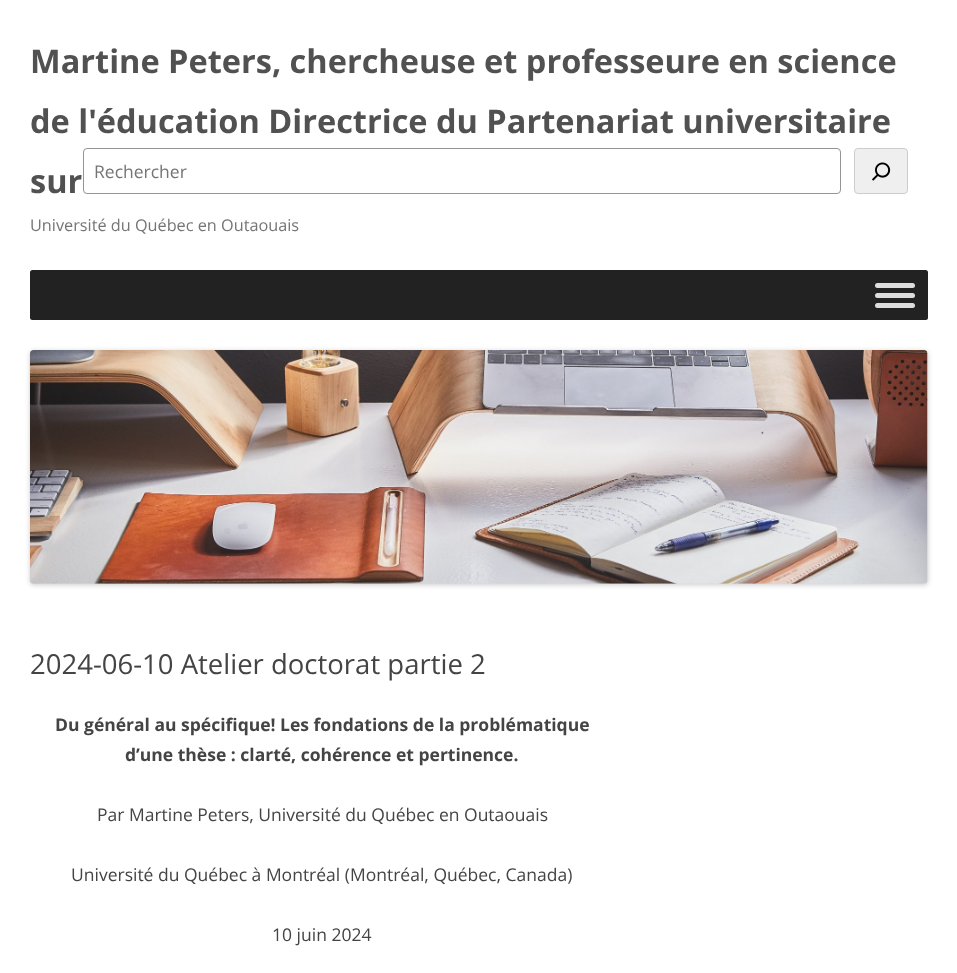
<!DOCTYPE html>
<meta charset="utf-8">
<style>body { margin: 0 } canvas { display: block }</style>
<canvas id="canvas" width="957" height="973"></canvas>
<script type="module">
  const canvas = document.getElementById("canvas");
  const g = canvas.getContext("2d");
  g.miterLimit = 4;
  g.fontKerning = "normal";
  function drawText(s, x, y, [font, color]) {
    g.font = font;
    g.fillStyle = color;
    g.fillText(s, x, y);
  }
  function fillBox(x, y, w, h, color) {
    g.fillStyle = color;
    g.fillRect(x, y, w, h);
  }
  function fillRounded(x, y, w, h, r, color) {
    g.fillStyle = color;
    g.beginPath();
    g.roundRect(x, y, w, h, r);
    g.fill();
  }
  async function drawPicture(src, x, y, w, h) {
    const img = new Image();
    img.src = src;
    await img.decode();
    g.drawImage(img, x, y, w, h);
  }

  const s1 = ["bold 32.5px Open Sans", "#515151"];
  const s2 = ["16.25px Open Sans", "#757575"];
  const s3 = ["17.5px Open Sans", "#757575"];
  const s4 = ["27.5px Open Sans", "#444444"];
  const s5 = ["bold 17.5px Open Sans", "#444444"];
  const s6 = ["17.5px Open Sans", "#444444"];

  fillBox(0, 0, 957, 973, "#FFFFFF");
  drawText("Martine Peters, chercheuse et professeure en science", 30, 73, s1);
  drawText("de l'éducation Directrice du Partenariat universitaire", 30, 133, s1);
  drawText("sur", 30, 193, s1);
  drawText("Université du Québec en Outaouais", 30, 231, s2);
  fillRounded(30, 270, 898, 50, 2.5, "#222222");
  fillRounded(875, 283, 40, 5, 2.5, "#DDDDDD");
  fillRounded(875, 293, 40, 5, 2.5, "#DDDDDD");
  fillRounded(875, 303, 40, 5, 2.5, "#DDDDDD");
  g.fillStyle = "rgba(0, 0, 0, 0.2)";
  g.filter = "blur(2.5px)";
  g.beginPath();
  g.roundRect(30, 351, 898, 234, 4);
  g.fill();
  g.filter = "none";
  await drawPicture("pic1.png", 30, 350, 898, 234);
  g.beginPath();
  g.roundRect(83.5, 148.5, 757, 45, 3.5);
  g.strokeStyle = "#949494";
  g.stroke();
  drawText("Rechercher", 94, 178, s3);
  g.fillStyle = "#EFEFEF";
  g.beginPath();
  g.roundRect(854.5, 148.5, 53, 45, 3.5);
  g.fill();
  g.strokeStyle = "#CCCCCC";
  g.stroke();
  await drawPicture("pic2.png", 872, 162, 19, 19);
  drawText("2024-06-10 Atelier doctorat partie 2", 30, 674, s4);
  drawText("Du général au spécifique! Les fondations de la problématique", 55, 731, s5);
  drawText("d’une thèse : clarté, cohérence et pertinence.", 125, 761, s5);
  drawText("Par Martine Peters, Université du Québec en Outaouais", 97, 821, s6);
  drawText("Université du Québec à Montréal (Montréal, Québec, Canada)", 71, 881, s6);
  drawText("10 juin 2024", 272, 941, s6);
</script>
